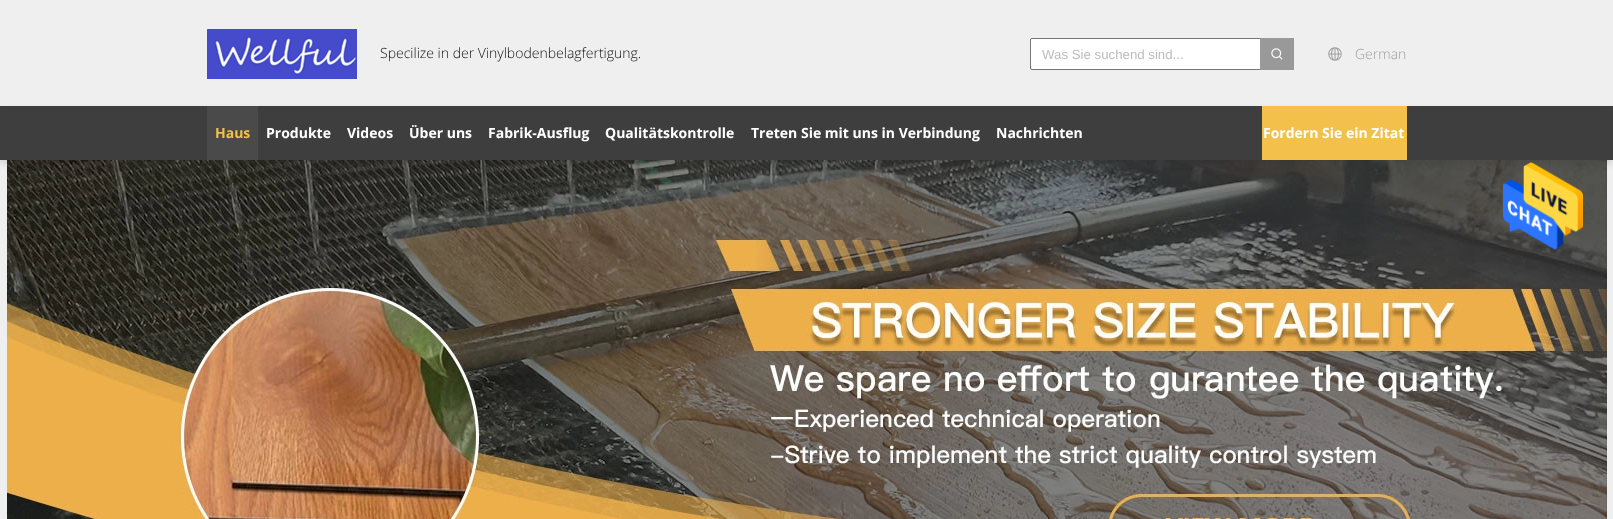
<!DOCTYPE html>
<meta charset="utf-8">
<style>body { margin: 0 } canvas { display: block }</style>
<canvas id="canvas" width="1613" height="519"></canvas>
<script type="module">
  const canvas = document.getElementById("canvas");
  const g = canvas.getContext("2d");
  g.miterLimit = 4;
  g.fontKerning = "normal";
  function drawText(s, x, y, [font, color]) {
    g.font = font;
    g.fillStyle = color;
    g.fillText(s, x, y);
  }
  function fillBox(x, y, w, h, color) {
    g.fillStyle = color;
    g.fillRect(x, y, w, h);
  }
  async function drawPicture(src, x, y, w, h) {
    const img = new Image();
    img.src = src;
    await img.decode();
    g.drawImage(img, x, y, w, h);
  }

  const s1 = ["300 14px Open Sans", "#111111"];
  const s2 = ["13.25px Liberation Sans", "#BCBCBC"];
  const s3 = ["300 14px Open Sans", "#9E9E9E"];
  const s4 = ["bold 14px Open Sans", "#F3C14B"];
  const s5 = ["bold 14px Open Sans", "#FFFFFF"];

  fillBox(0, 0, 1613, 519, "#EFEFEF");
  await drawPicture("pic1.png", 207, 29, 150, 50);
  drawText("Specilize in der Vinylbodenbelagfertigung.", 380, 58, s1);
  g.fillStyle = "#FFFFFF";
  g.beginPath();
  g.roundRect(1030.5, 38.5, 263, 31, 1.5);
  g.fill();
  g.strokeStyle = "#767676";
  g.stroke();
  drawText("Was Sie suchend sind...", 1042, 59, s2);
  fillBox(1260, 38, 34, 32, "#999999");
  await drawPicture("pic2.png", 1271, 48, 12, 12);
  await drawPicture("pic3.png", 1328, 47, 14, 14);
  drawText("German", 1355, 59, s3);
  await drawPicture("pic4.png", 7, 160, 1600, 359);
  g.fillStyle = "rgba(41, 41, 41, 0.15)";
  g.filter = "blur(3px)";
  g.beginPath();
  g.rect(0, 110, 1613, 54);
  g.fill();
  g.filter = "none";
  fillBox(0, 106, 1613, 54, "#3E3E3E");
  fillBox(207, 106, 51, 54, "#4A4A4A");
  drawText("Haus", 215, 138, s4);
  drawText("Produkte", 266, 138, s5);
  drawText("Videos", 347, 138, s5);
  drawText("Über uns", 409, 138, s5);
  drawText("Fabrik-Ausflug", 488, 138, s5);
  drawText("Qualitätskontrolle", 605, 138, s5);
  drawText("Treten Sie mit uns in Verbindung", 751, 138, s5);
  drawText("Nachrichten", 996, 138, s5);
  fillBox(1262, 106, 145, 54, "#F3C14B");
  drawText("Fordern Sie ein Zitat", 1263, 138, s5);
  await drawPicture("pic5.png", 1503, 162, 80, 88);
</script>
